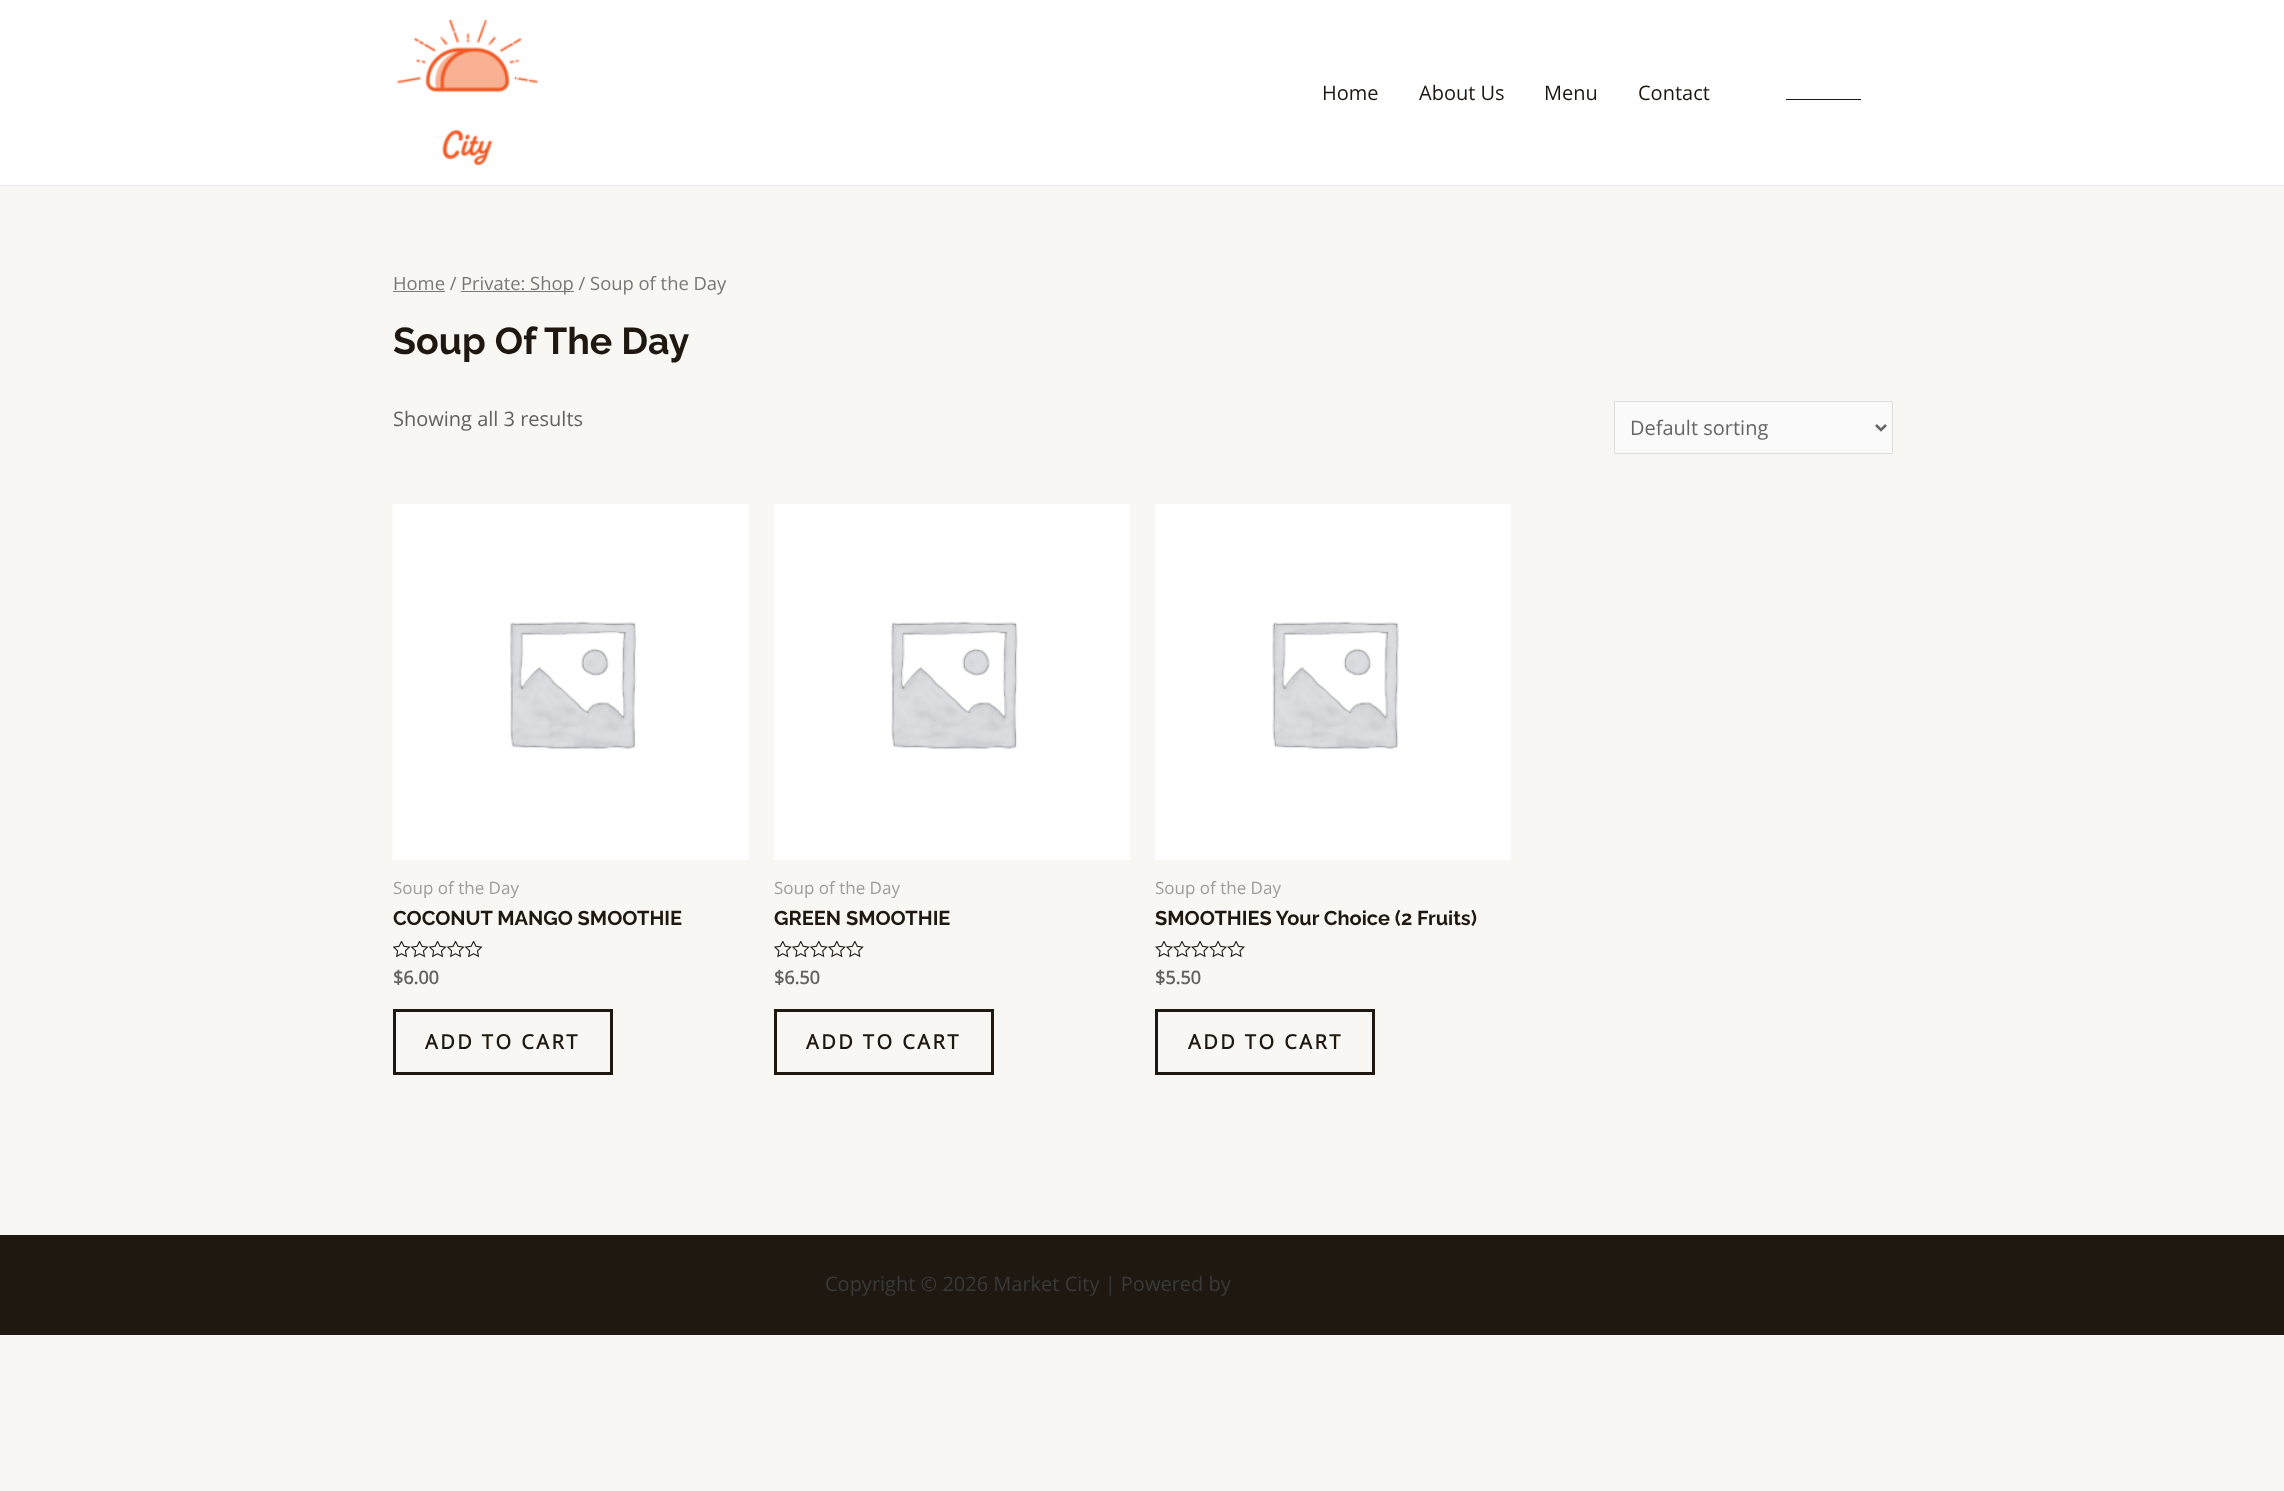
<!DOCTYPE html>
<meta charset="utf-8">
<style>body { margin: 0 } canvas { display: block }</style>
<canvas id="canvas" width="2284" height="1491"></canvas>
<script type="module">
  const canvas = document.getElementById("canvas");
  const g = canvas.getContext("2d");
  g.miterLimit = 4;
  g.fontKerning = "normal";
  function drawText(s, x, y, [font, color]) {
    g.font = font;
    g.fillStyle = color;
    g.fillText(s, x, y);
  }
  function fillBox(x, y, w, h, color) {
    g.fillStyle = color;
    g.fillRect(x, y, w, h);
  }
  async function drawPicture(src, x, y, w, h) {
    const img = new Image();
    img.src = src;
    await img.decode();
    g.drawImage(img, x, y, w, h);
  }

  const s1 = ["20px Open Sans", "#1E1810"];
  const s2 = ["18.4px Open Sans", "#777777"];
  const s3 = ["100 37.5px Raleway", "#1E1810"];
  const s4 = ["20px Open Sans", "#62615C"];
  const s5 = ["20px Open Sans", "#666666"];
  const s6 = ["17px Open Sans", "#9E9D98"];
  const s7 = ["100 20px Raleway", "#1E1810"];
  const s8 = ["bold 18px Open Sans", "#62615C"];
  const s9 = ["bold 20px Open Sans", "#1E1810"];
  const s10 = ["20px Open Sans", "#3A3A3A"];

  fillBox(0, 0, 2284, 1491, "#F8F7F3");
  fillBox(0, 0, 2284, 185, "#FFFFFF");
  fillBox(0, 185, 2284, 1, "#EAEAEA");
  await drawPicture("pic1.png", 396, 20, 143, 145);
  drawText("Home", 1322, 100, s1);
  drawText("About Us", 1419, 100, s1);
  drawText("Menu", 1544, 100, s1);
  drawText("Contact", 1638, 100, s1);
  fillBox(1786, 99, 75, 1, "#1E1810");
  drawText("Home /", 393, 290, s2);
  fillBox(393, 291, 52, 1, "#777777");
  fillBox(461, 291, 113, 1, "#777777");
  drawText("Private: Shop / Soup of the Day", 461, 290, s2);
  drawText("Soup Of The Day", 393, 354, s3);
  drawText("Showing all 3 results", 393, 426, s4);
  g.fillStyle = "#FAFAFA";
  g.beginPath();
  g.rect(1614.5, 401.5, 278, 52);
  g.fill();
  g.strokeStyle = "#DDDDDD";
  g.stroke();
  g.beginPath();
  g.moveTo(1876, 425);
  g.lineTo(1881, 430);
  g.lineTo(1886, 425);
  g.strokeStyle = "#666666";
  g.lineWidth = 2.5;
  g.stroke();
  drawText("Default sorting", 1630, 435, s5);
  await drawPicture("pic2.png", 392, 504, 357, 356);
  drawText("Soup of the Day", 393, 894, s6);
  drawText("COCONUT MANGO SMOOTHIE", 393, 925, s7);
  await drawPicture("pic3.png", 393, 941, 90, 17);
  drawText("$6.00", 393, 984, s8);
  g.strokeStyle = "#1E1810";
  g.lineWidth = 3;
  g.strokeRect(394.5, 1010.5, 217, 63);
  g.letterSpacing = "2.5px";
  drawText("ADD TO CART", 425, 1049, s9);
  await drawPicture("pic4.png", 774, 504, 356, 356);
  g.letterSpacing = "0px";
  drawText("Soup of the Day", 774, 894, s6);
  drawText("GREEN SMOOTHIE", 774, 925, s7);
  await drawPicture("pic5.png", 774, 941, 90, 17);
  drawText("$6.50", 774, 984, s8);
  g.strokeRect(775.5, 1010.5, 217, 63);
  g.letterSpacing = "2.5px";
  drawText("ADD TO CART", 806, 1049, s9);
  await drawPicture("pic6.png", 1155, 504, 356, 356);
  g.letterSpacing = "0px";
  drawText("Soup of the Day", 1155, 894, s6);
  drawText("SMOOTHIES Your Choice (2 Fruits)", 1155, 925, s7);
  await drawPicture("pic7.png", 1155, 941, 90, 17);
  drawText("$5.50", 1155, 984, s8);
  g.strokeRect(1156.5, 1010.5, 217, 63);
  g.letterSpacing = "2.5px";
  drawText("ADD TO CART", 1188, 1049, s9);
  fillBox(0, 1235, 2284, 100, "#1E1810");
  g.letterSpacing = "0px";
  drawText("Copyright © 2026 Market City | Powered by", 825, 1291, s10);
</script>
